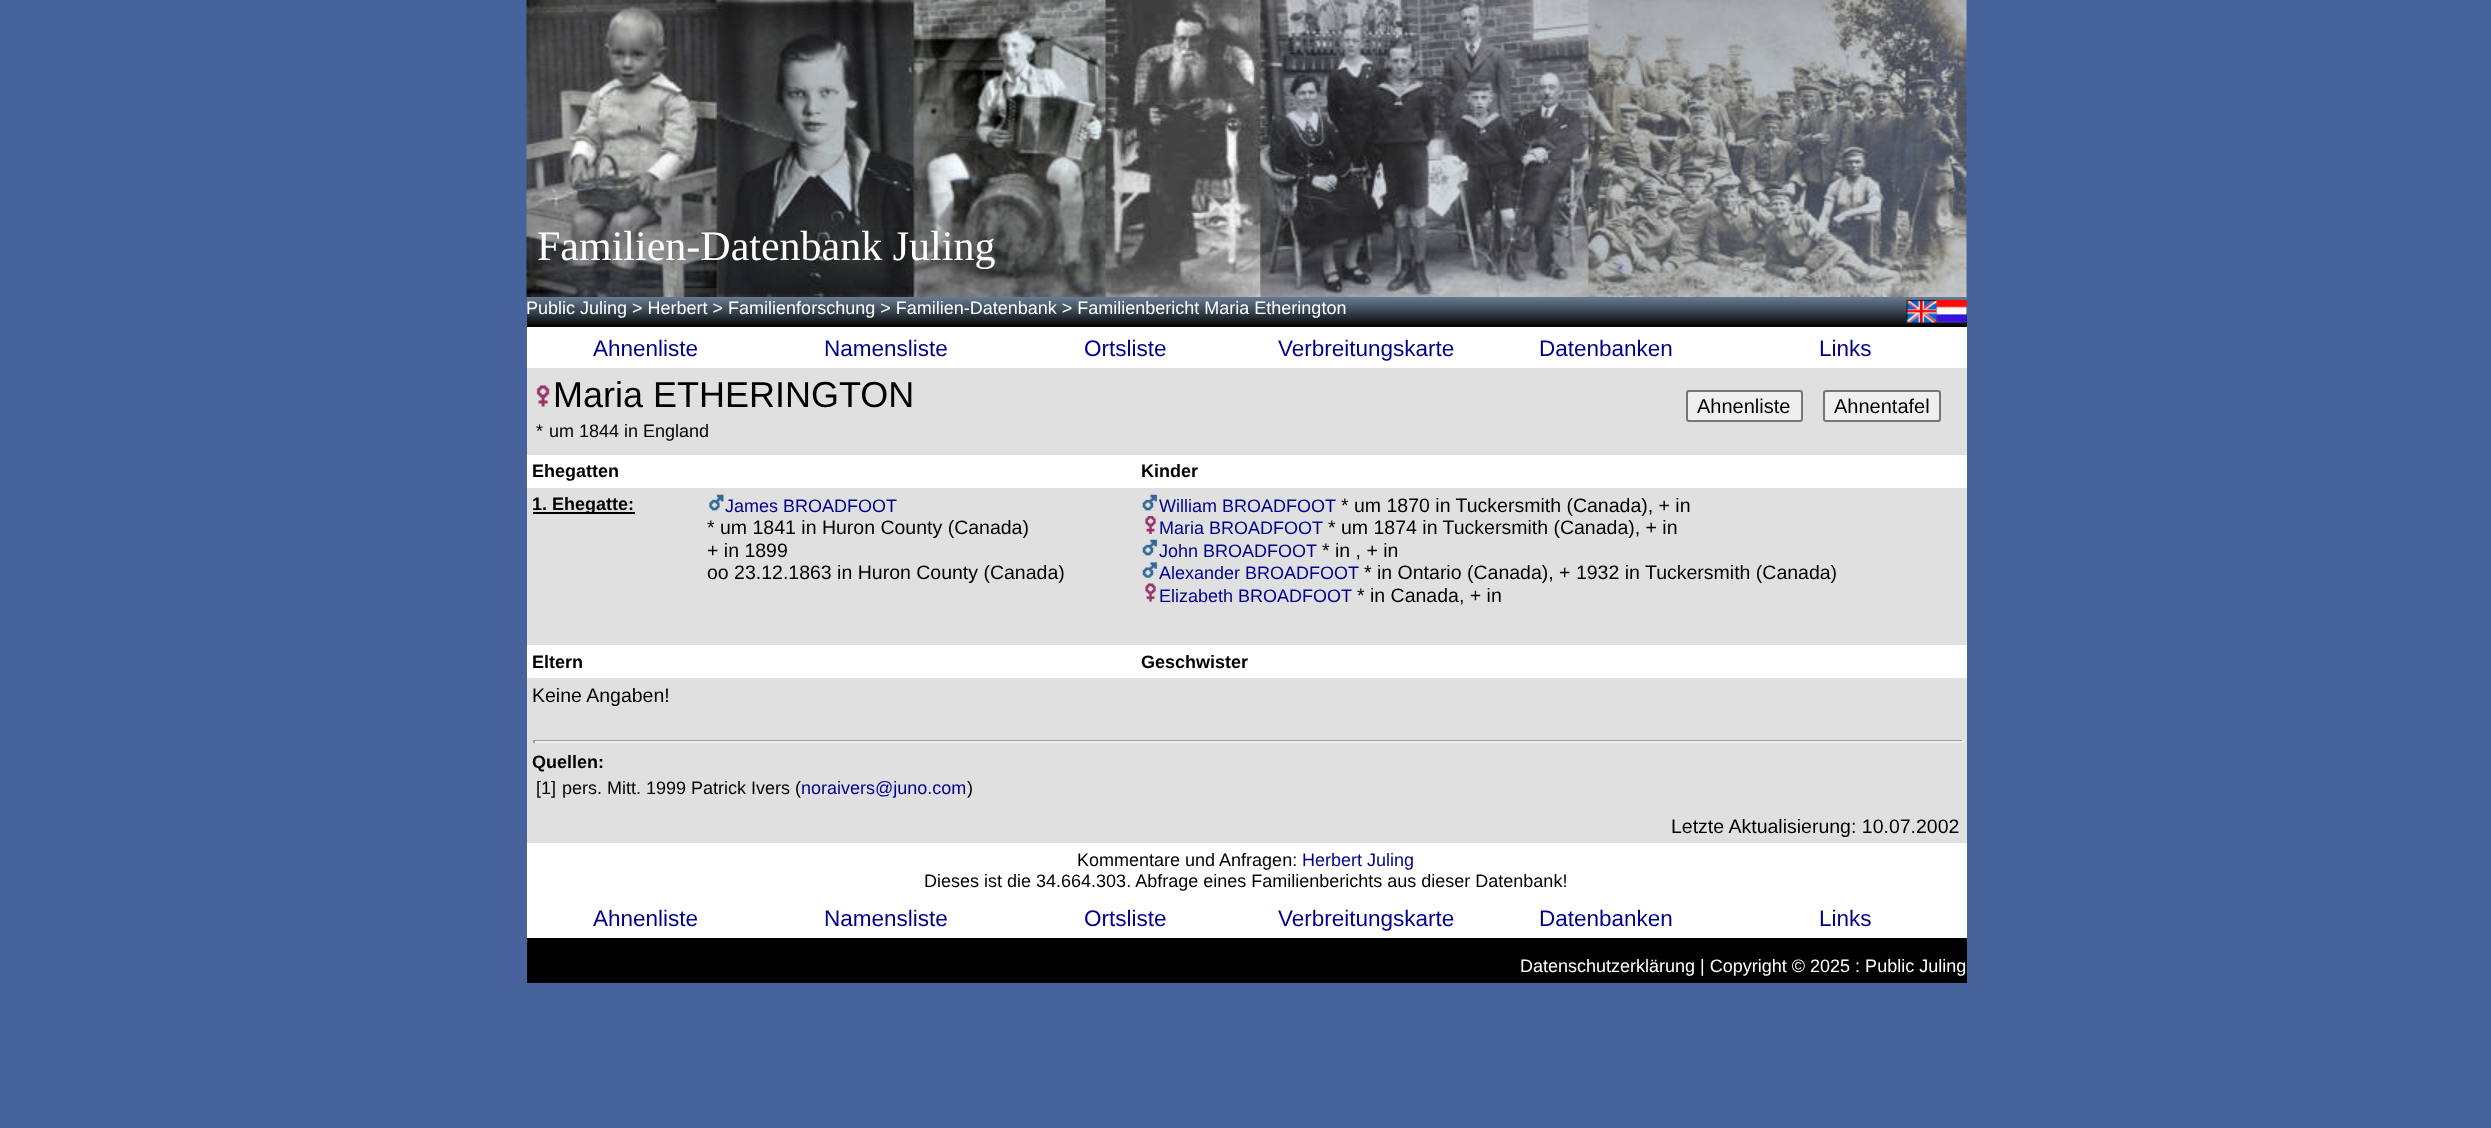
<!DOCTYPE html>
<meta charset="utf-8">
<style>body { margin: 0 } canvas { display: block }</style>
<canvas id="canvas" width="2491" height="1128"></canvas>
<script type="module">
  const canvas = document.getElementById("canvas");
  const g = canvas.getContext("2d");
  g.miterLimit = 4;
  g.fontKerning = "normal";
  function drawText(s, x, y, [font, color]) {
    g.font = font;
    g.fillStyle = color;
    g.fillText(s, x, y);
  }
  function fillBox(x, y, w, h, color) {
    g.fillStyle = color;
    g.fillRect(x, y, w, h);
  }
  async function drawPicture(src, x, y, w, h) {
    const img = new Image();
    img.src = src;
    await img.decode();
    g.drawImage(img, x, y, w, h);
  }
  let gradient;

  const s1 = ["42px Liberation Serif", "#FFFFFF"];
  const s2 = ["18px Liberation Sans", "#FFFFFF"];
  const s3 = ["22.5px Liberation Sans", "#00008B"];
  const s4 = ["36px Liberation Sans", "#000000"];
  const s5 = ["20px Liberation Sans", "#000000"];
  const s6 = ["18px Liberation Sans", "#000000"];
  const s7 = ["bold 18px Liberation Sans", "#000000"];
  const s8 = ["18px Liberation Sans", "#00008B"];
  const s9 = ["19.5px Liberation Sans", "#000000"];

  fillBox(0, 0, 2491, 1128, "#46649B");
  await drawPicture("pic1.png", 526, 0, 1441, 297);
  drawText("Familien-Datenbank Juling", 537, 260, s1);
  gradient = g.createLinearGradient(1247, 297, 1247, 368);
  gradient.addColorStop(0, "#5F7794");
  gradient.addColorStop(1, "#000000");
  g.fillStyle = gradient;
  g.fillRect(527, 297, 1440, 29);
  gradient = g.createLinearGradient(1247, 297, 1247, 327);
  gradient.addColorStop(0, "rgba(103, 125, 145, 0.75)");
  gradient.addColorStop(1, "#000000");
  g.fillStyle = gradient;
  g.fillRect(527, 297, 1440, 30);
  drawText("Public Juling > Herbert > Familienforschung > Familien-Datenbank > Familienbericht Maria Etherington", 526, 314, s2);
  await drawPicture("pic2.png", 1906, 300, 31, 23);
  await drawPicture("pic3.png", 1936, 300, 31, 23);
  fillBox(527, 327, 1440, 41, "#FFFFFF");
  drawText("Ahnenliste", 593, 356, s3);
  drawText("Namensliste", 824, 356, s3);
  drawText("Ortsliste", 1084, 356, s3);
  drawText("Verbreitungskarte", 1278, 356, s3);
  drawText("Datenbanken", 1539, 356, s3);
  drawText("Links", 1819, 356, s3);
  fillBox(527, 368, 1440, 475, "#E0E0E0");
  await drawPicture("pic4.png", 536, 385, 14, 22);
  drawText("Maria ETHERINGTON", 553, 407, s4);
  g.fillStyle = "#EFEFEF";
  g.beginPath();
  g.roundRect(1687, 391, 115, 30, 2);
  g.fill();
  g.strokeStyle = "#767676";
  g.lineWidth = 2;
  g.stroke();
  drawText("Ahnenliste", 1697, 413, s5);
  g.fillStyle = "#EFEFEF";
  g.beginPath();
  g.roundRect(1824, 391, 116, 30, 2);
  g.fill();
  g.stroke();
  drawText("Ahnentafel", 1834, 413, s5);
  drawText("*", 536, 437, s6);
  drawText("um 1844 in England", 549, 437, s6);
  fillBox(527, 455, 1440, 33, "#FFFFFF");
  drawText("Ehegatten", 532, 477, s7);
  drawText("Kinder", 1141, 477, s7);
  fillBox(533, 512, 102, 2, "#000000");
  drawText("1. Ehegatte:", 532, 510, s7);
  await drawPicture("pic5.png", 709, 494, 15, 17);
  drawText("James BROADFOOT", 725, 512, s8);
  drawText("* um 1841 in Huron County (Canada)", 707, 534, s9);
  drawText("+ in 1899", 707, 557, s9);
  drawText("oo 23.12.1863 in Huron County (Canada)", 707, 579, s9);
  await drawPicture("pic6.png", 1142, 494, 16, 17);
  drawText("William BROADFOOT", 1159, 512, s8);
  drawText("* um 1870 in Tuckersmith (Canada), + in", 1341, 512, s9);
  await drawPicture("pic7.png", 1145, 516, 11, 18);
  drawText("Maria BROADFOOT", 1159, 534, s8);
  drawText("* um 1874 in Tuckersmith (Canada), + in", 1328, 534, s9);
  await drawPicture("pic6.png", 1142, 539, 16, 17);
  drawText("John BROADFOOT", 1159, 557, s8);
  drawText("* in , + in", 1322, 557, s9);
  await drawPicture("pic8.png", 1142, 562, 16, 16);
  drawText("Alexander BROADFOOT", 1159, 579, s8);
  drawText("* in Ontario (Canada), + 1932 in Tuckersmith (Canada)", 1364, 579, s9);
  await drawPicture("pic9.png", 1145, 583, 11, 19);
  drawText("Elizabeth BROADFOOT", 1159, 602, s8);
  drawText("* in Canada, + in", 1357, 602, s9);
  fillBox(527, 645, 1440, 33, "#FFFFFF");
  drawText("Eltern", 532, 668, s7);
  drawText("Geschwister", 1141, 668, s7);
  drawText("Keine Angaben!", 532, 702, s9);
  fillBox(533, 740, 1431, 1, "#9F9F9F");
  fillBox(1962, 740, 2, 3, "#EEEEEE");
  fillBox(533, 741, 1431, 2, "#EEEEEE");
  fillBox(533, 740, 2, 3, "#9F9F9F");
  drawText("Quellen:", 532, 768, s7);
  drawText("[1]", 536, 794, s6);
  drawText("pers. Mitt. 1999 Patrick Ivers (", 562, 794, s6);
  drawText("noraivers@juno.com", 801, 794, s8);
  drawText(")", 967, 794, s6);
  drawText("Letzte Aktualisierung: 10.07.2002", 1671, 833, s9);
  fillBox(527, 843, 1440, 54, "#FFFFFF");
  drawText("Kommentare und Anfragen:", 1077, 866, s6);
  drawText("Herbert Juling", 1302, 866, s8);
  drawText("Dieses ist die 34.664.303. Abfrage eines Familienberichts aus dieser Datenbank!", 924, 887, s6);
  fillBox(527, 897, 1440, 41, "#FFFFFF");
  drawText("Ahnenliste", 593, 926, s3);
  drawText("Namensliste", 824, 926, s3);
  drawText("Ortsliste", 1084, 926, s3);
  drawText("Verbreitungskarte", 1278, 926, s3);
  drawText("Datenbanken", 1539, 926, s3);
  drawText("Links", 1819, 926, s3);
  fillBox(527, 938, 1440, 45, "#000000");
  drawText("Datenschutzerklärung | Copyright © 2025 : Public Juling", 1520, 972, s2);
</script>
